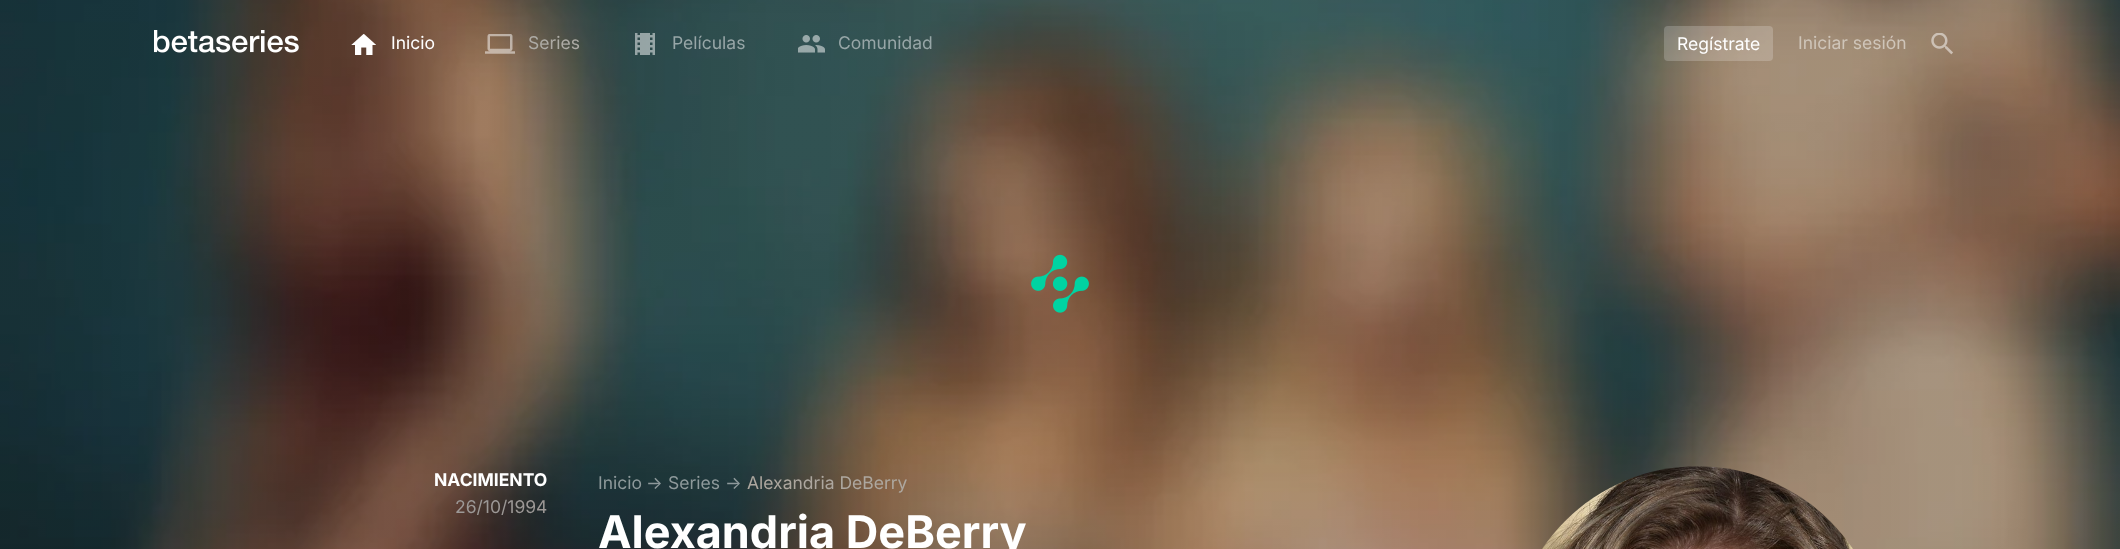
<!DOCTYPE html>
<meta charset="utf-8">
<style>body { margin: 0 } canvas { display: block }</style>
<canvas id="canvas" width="2120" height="549"></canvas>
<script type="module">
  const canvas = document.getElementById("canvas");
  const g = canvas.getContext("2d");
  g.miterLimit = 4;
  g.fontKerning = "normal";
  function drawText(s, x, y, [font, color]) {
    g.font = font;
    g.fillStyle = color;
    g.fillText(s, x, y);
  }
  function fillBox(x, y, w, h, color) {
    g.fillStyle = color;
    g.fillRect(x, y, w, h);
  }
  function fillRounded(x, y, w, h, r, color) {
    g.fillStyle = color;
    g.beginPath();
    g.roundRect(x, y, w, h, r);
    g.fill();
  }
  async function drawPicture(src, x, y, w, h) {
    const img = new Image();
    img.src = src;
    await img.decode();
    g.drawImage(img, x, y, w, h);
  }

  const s1 = ["17.5px Inter", "#FFFFFF"];
  const s2 = ["17.5px Inter", "#ADABA5"];
  const s3 = ["17.5px Inter", "#97A6A7"];
  const s4 = ["17.5px Inter", "#CFC5B9"];
  const s5 = ["bold 17.5px Inter", "#FFFFFF"];
  const s6 = ["17.5px Inter", "#9C9896"];
  const s7 = ["17.5px Inter", "#8E999B"];
  const s8 = ["17.5px Inter", "#ADA79F"];
  const s9 = ["bold 45px Inter", "#FFFFFF"];

  fillBox(0, 0, 2120, 549, "#FFFFFF");
  await drawPicture("pic1.png", 0, 0, 2120, 549);
  await drawPicture("pic2.png", 154, 30, 145, 23);
  await drawPicture("pic3.png", 351, 34, 25, 21);
  drawText("Inicio", 391, 49, s1);
  await drawPicture("pic4.png", 485, 34, 30, 20);
  drawText("Series", 528, 49, s2);
  await drawPicture("pic5.png", 635, 33, 20, 22);
  drawText("Películas", 672, 49, s3);
  await drawPicture("pic6.png", 798, 35, 27, 18);
  drawText("Comunidad", 838, 49, s3);
  fillRounded(1664, 26, 109, 35, 4, "rgba(255, 255, 255, 0.2)");
  drawText("Regístrate", 1677, 50, s1);
  drawText("Iniciar sesión", 1798, 49, s4);
  await drawPicture("pic7.png", 1931, 33, 22, 22);
  await drawPicture("pic8.png", 1031, 254, 58, 59);
  drawText("NACIMIENTO", 434, 486, s5);
  drawText("26/10/1994", 455, 513, s6);
  drawText("Inicio", 598, 489, s7);
  drawText("→", 646, 489, s7);
  drawText("Series", 668, 489, s7);
  drawText("→", 725, 489, s7);
  drawText("Alexandria DeBerry", 747, 489, s8);
  drawText("Alexandria DeBerry", 598, 548, s9);
  await drawPicture("pic9.png", 1542, 466, 311, 83);
</script>
